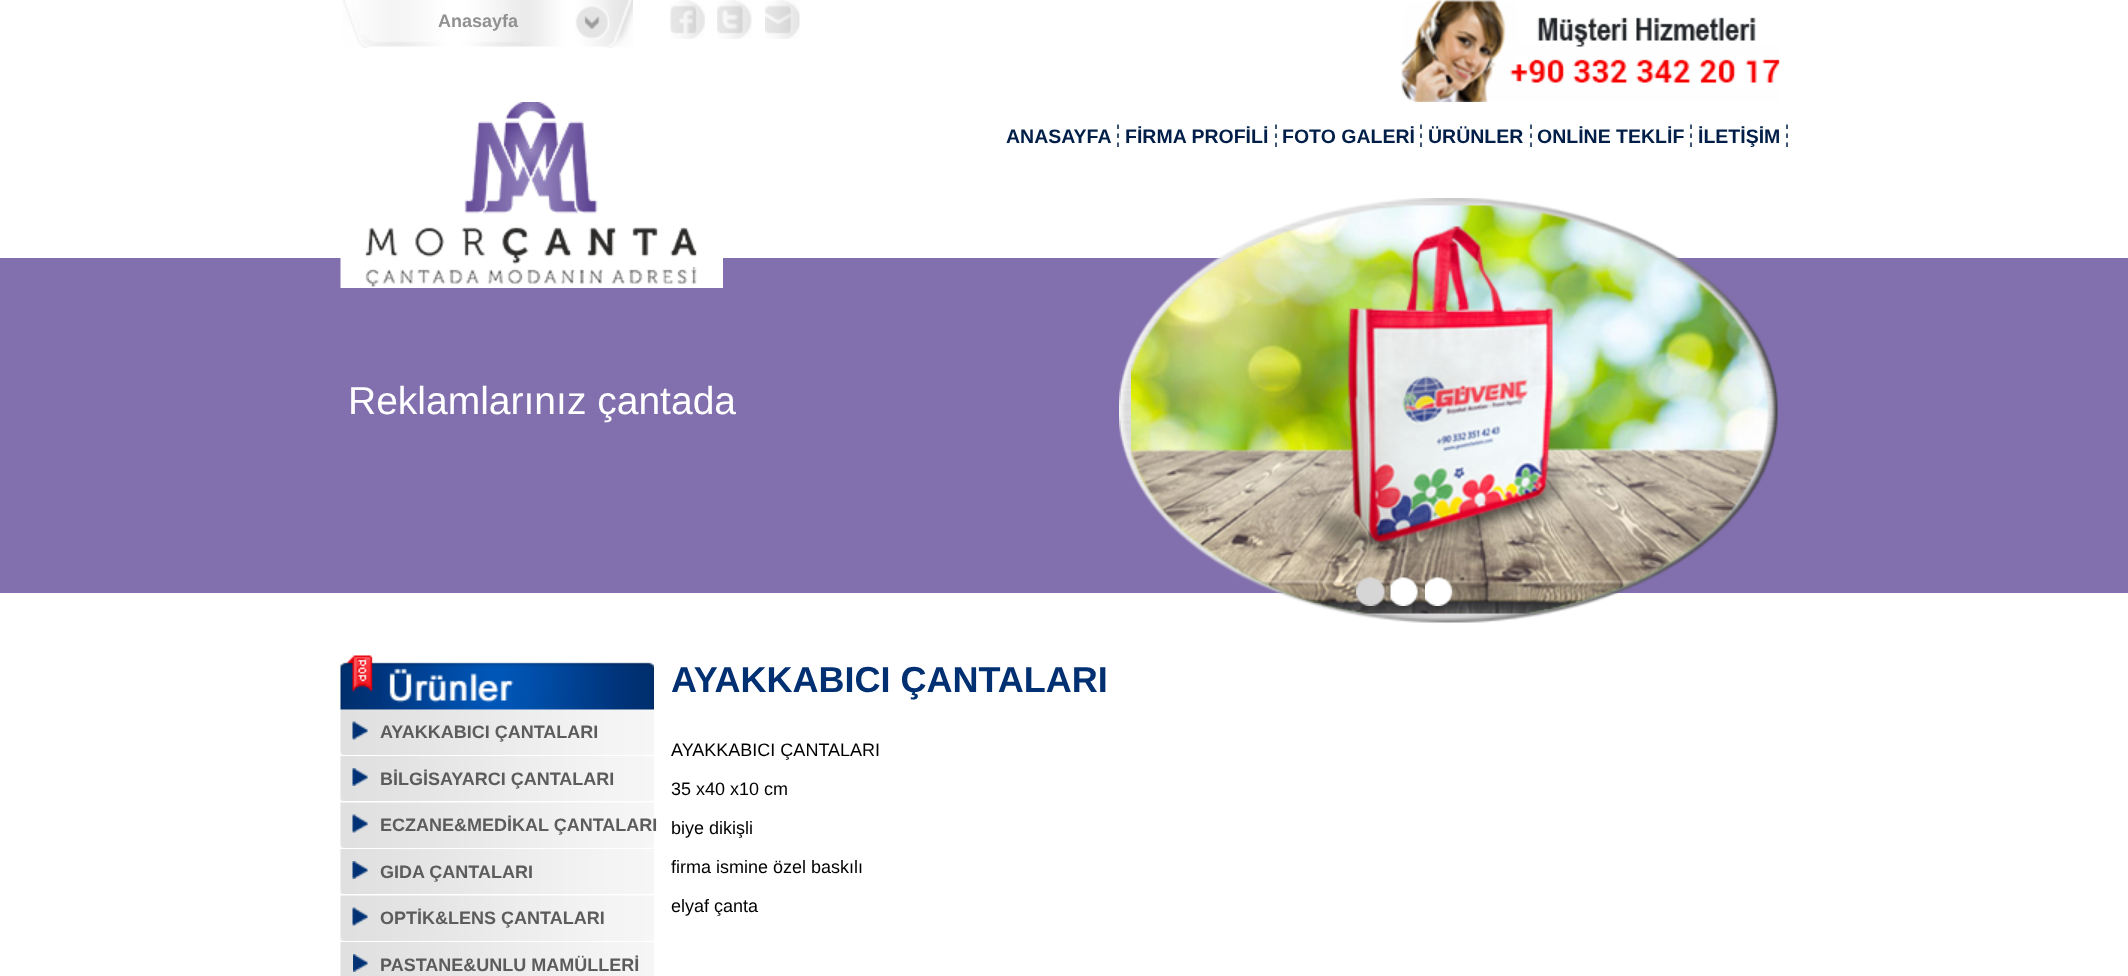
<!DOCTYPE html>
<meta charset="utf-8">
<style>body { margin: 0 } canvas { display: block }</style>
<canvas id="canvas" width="2128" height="976"></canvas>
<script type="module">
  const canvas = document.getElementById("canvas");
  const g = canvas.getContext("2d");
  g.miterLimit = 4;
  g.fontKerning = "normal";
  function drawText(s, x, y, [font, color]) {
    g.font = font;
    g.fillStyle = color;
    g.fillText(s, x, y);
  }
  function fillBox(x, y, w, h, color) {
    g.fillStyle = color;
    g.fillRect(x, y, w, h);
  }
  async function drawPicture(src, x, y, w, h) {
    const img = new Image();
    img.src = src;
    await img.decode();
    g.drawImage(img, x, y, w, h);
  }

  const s1 = ["bold 18px Liberation Sans", "#919191"];
  const s2 = ["bold 19.5px Liberation Sans", "#001E47"];
  const s3 = ["39px Liberation Sans", "#FFFFFF"];
  const s4 = ["bold 18px Liberation Sans", "#5C5C5C"];
  const s5 = ["bold 36px Liberation Sans", "#003071"];
  const s6 = ["18px Liberation Sans", "#000000"];

  fillBox(0, 0, 2128, 976, "#FFFFFF");
  await drawPicture("pic1.png", 342, 0, 291, 48);
  drawText("Anasayfa", 438, 27, s1);
  await drawPicture("pic2.png", 670, 0, 35, 39);
  await drawPicture("pic3.png", 717, 0, 35, 39);
  await drawPicture("pic4.png", 765, 0, 35, 39);
  await drawPicture("pic5.png", 1401, 0, 379, 102);
  fillBox(0, 258, 2128, 335, "#826FAD");
  await drawPicture("pic6.png", 340, 102, 383, 186);
  g.beginPath();
  g.moveTo(1118, 124.5);
  g.lineTo(1118, 129);
  g.moveTo(1118, 133.5);
  g.lineTo(1118, 138);
  g.moveTo(1118, 142.5);
  g.lineTo(1118, 147);
  g.strokeStyle = "#001E47";
  g.lineWidth = 1.5;
  g.stroke();
  drawText("ANASAYFA", 1006, 143, s2);
  g.beginPath();
  g.moveTo(1276, 124.5);
  g.lineTo(1276, 129);
  g.moveTo(1276, 133.5);
  g.lineTo(1276, 138);
  g.moveTo(1276, 142.5);
  g.lineTo(1276, 147);
  g.stroke();
  drawText("FİRMA PROFİLİ", 1125, 143, s2);
  g.beginPath();
  g.moveTo(1421, 124.5);
  g.lineTo(1421, 129);
  g.moveTo(1421, 133.5);
  g.lineTo(1421, 138);
  g.moveTo(1421, 142.5);
  g.lineTo(1421, 147);
  g.stroke();
  drawText("FOTO GALERİ", 1282, 143, s2);
  g.beginPath();
  g.moveTo(1531, 124.5);
  g.lineTo(1531, 129);
  g.moveTo(1531, 133.5);
  g.lineTo(1531, 138);
  g.moveTo(1531, 142.5);
  g.lineTo(1531, 147);
  g.stroke();
  drawText("ÜRÜNLER", 1428, 143, s2);
  g.beginPath();
  g.moveTo(1691, 124.5);
  g.lineTo(1691, 129);
  g.moveTo(1691, 133.5);
  g.lineTo(1691, 138);
  g.moveTo(1691, 142.5);
  g.lineTo(1691, 147);
  g.stroke();
  drawText("ONLİNE TEKLİF", 1537, 143, s2);
  g.beginPath();
  g.moveTo(1787, 124.5);
  g.lineTo(1787, 129);
  g.moveTo(1787, 133.5);
  g.lineTo(1787, 138);
  g.moveTo(1787, 142.5);
  g.lineTo(1787, 147);
  g.stroke();
  drawText("İLETİŞİM", 1698, 143, s2);
  await drawPicture("pic7.png", 1119, 198, 659, 425);
  await drawPicture("pic8.png", 1131, 205, 638, 409);
  drawText("Reklamlarınız çantada", 348, 414, s3);
  await drawPicture("pic9.png", 1356, 577, 29, 29);
  await drawPicture("pic10.png", 1390, 577, 28, 29);
  await drawPicture("pic11.png", 1425, 577, 28, 29);
  await drawPicture("pic13.png", 340, 709, 314, 47);
  await drawPicture("pic12.png", 340, 655, 314, 55);
  fillBox(341, 755, 312, 1, "#FFFFFF");
  await drawPicture("pic14.png", 352, 721, 16, 19);
  drawText("AYAKKABICI ÇANTALARI", 380, 738, s4);
  await drawPicture("pic15.png", 340, 756, 314, 47);
  fillBox(341, 801, 312, 2, "#FFFFFF");
  await drawPicture("pic16.png", 352, 768, 16, 18);
  drawText("BİLGİSAYARCI ÇANTALARI", 380, 785, s4);
  await drawPicture("pic13.png", 340, 802, 314, 47);
  fillBox(341, 848, 312, 1, "#FFFFFF");
  await drawPicture("pic14.png", 352, 814, 16, 19);
  drawText("ECZANE&MEDİKAL ÇANTALARI", 380, 831, s4);
  await drawPicture("pic15.png", 340, 849, 314, 47);
  fillBox(341, 894, 312, 2, "#FFFFFF");
  await drawPicture("pic16.png", 352, 861, 16, 18);
  drawText("GIDA ÇANTALARI", 380, 878, s4);
  await drawPicture("pic13.png", 340, 895, 314, 47);
  fillBox(341, 941, 312, 1, "#FFFFFF");
  await drawPicture("pic14.png", 352, 907, 16, 19);
  drawText("OPTİK&LENS ÇANTALARI", 380, 924, s4);
  await drawPicture("pic17.png", 340, 942, 314, 34);
  await drawPicture("pic18.png", 353, 954, 15, 18);
  drawText("PASTANE&UNLU MAMÜLLERİ", 380, 971, s4);
  drawText("AYAKKABICI ÇANTALARI", 671, 692, s5);
  drawText("AYAKKABICI ÇANTALARI", 671, 756, s6);
  drawText("35 x40 x10 cm", 671, 795, s6);
  drawText("biye dikişli", 671, 834, s6);
  drawText("firma ismine özel baskılı", 671, 873, s6);
  drawText("elyaf çanta", 671, 912, s6);
</script>
